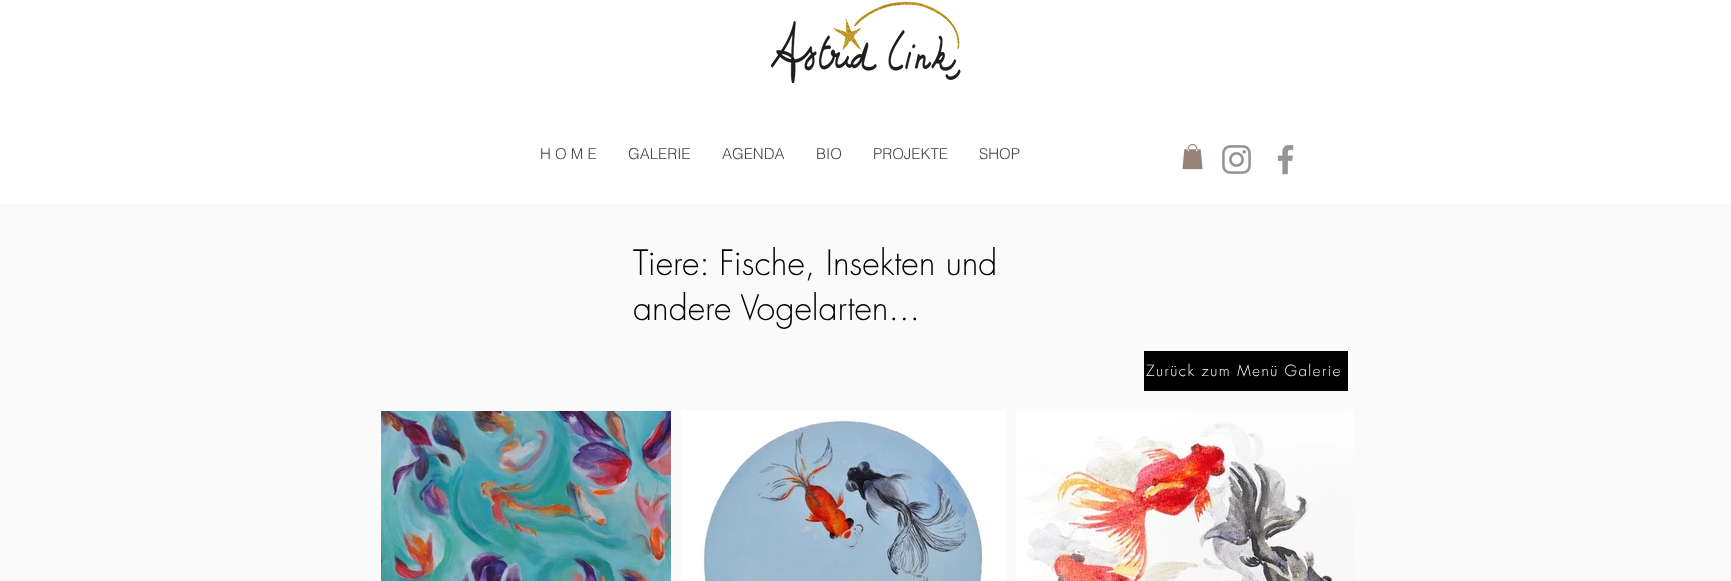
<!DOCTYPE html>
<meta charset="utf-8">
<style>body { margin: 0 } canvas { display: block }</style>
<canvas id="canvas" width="1731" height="581"></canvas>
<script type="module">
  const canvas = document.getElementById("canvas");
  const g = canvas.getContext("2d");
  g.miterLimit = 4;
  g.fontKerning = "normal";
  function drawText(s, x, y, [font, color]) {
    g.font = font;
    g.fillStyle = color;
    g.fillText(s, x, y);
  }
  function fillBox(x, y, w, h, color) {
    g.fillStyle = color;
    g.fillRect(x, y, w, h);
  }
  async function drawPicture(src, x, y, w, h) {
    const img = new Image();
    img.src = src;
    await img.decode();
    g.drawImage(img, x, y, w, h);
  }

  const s1 = ["300 15px helvetica", "#444444"];
  const s2 = ["300 34px futura", "#000000"];
  const s3 = ["300 15px futura", "#FFFFFF"];

  fillBox(0, 0, 1731, 581, "#FFFFFF");
  await drawPicture("pic1.png", 771, 1, 190, 82);
  drawText("H O M E", 540, 159, s1);
  drawText("GALERIE", 628, 159, s1);
  drawText("AGENDA", 722, 159, s1);
  drawText("BIO", 816, 159, s1);
  drawText("PROJEKTE", 873, 159, s1);
  drawText("SHOP", 979, 159, s1);
  await drawPicture("pic2.png", 1182, 144, 21, 26);
  await drawPicture("pic3.png", 1222, 145, 29, 29);
  await drawPicture("pic4.png", 1277, 145, 17, 30);
  fillBox(0, 204, 1731, 377, "#FAFAFA");
  drawText("Tiere: Fische, Insekten und", 633, 275, s2);
  drawText("andere Vogelarten...", 633, 320, s2);
  fillBox(1144, 351, 204, 40, "#000000");
  g.letterSpacing = "1.5px";
  drawText("Zurück zum Menü Galerie", 1146, 376, s3);
  await drawPicture("pic5.png", 381, 411, 290, 170);
  await drawPicture("pic6.png", 681, 411, 325, 170);
  await drawPicture("pic7.png", 1016, 411, 338, 170);
</script>
